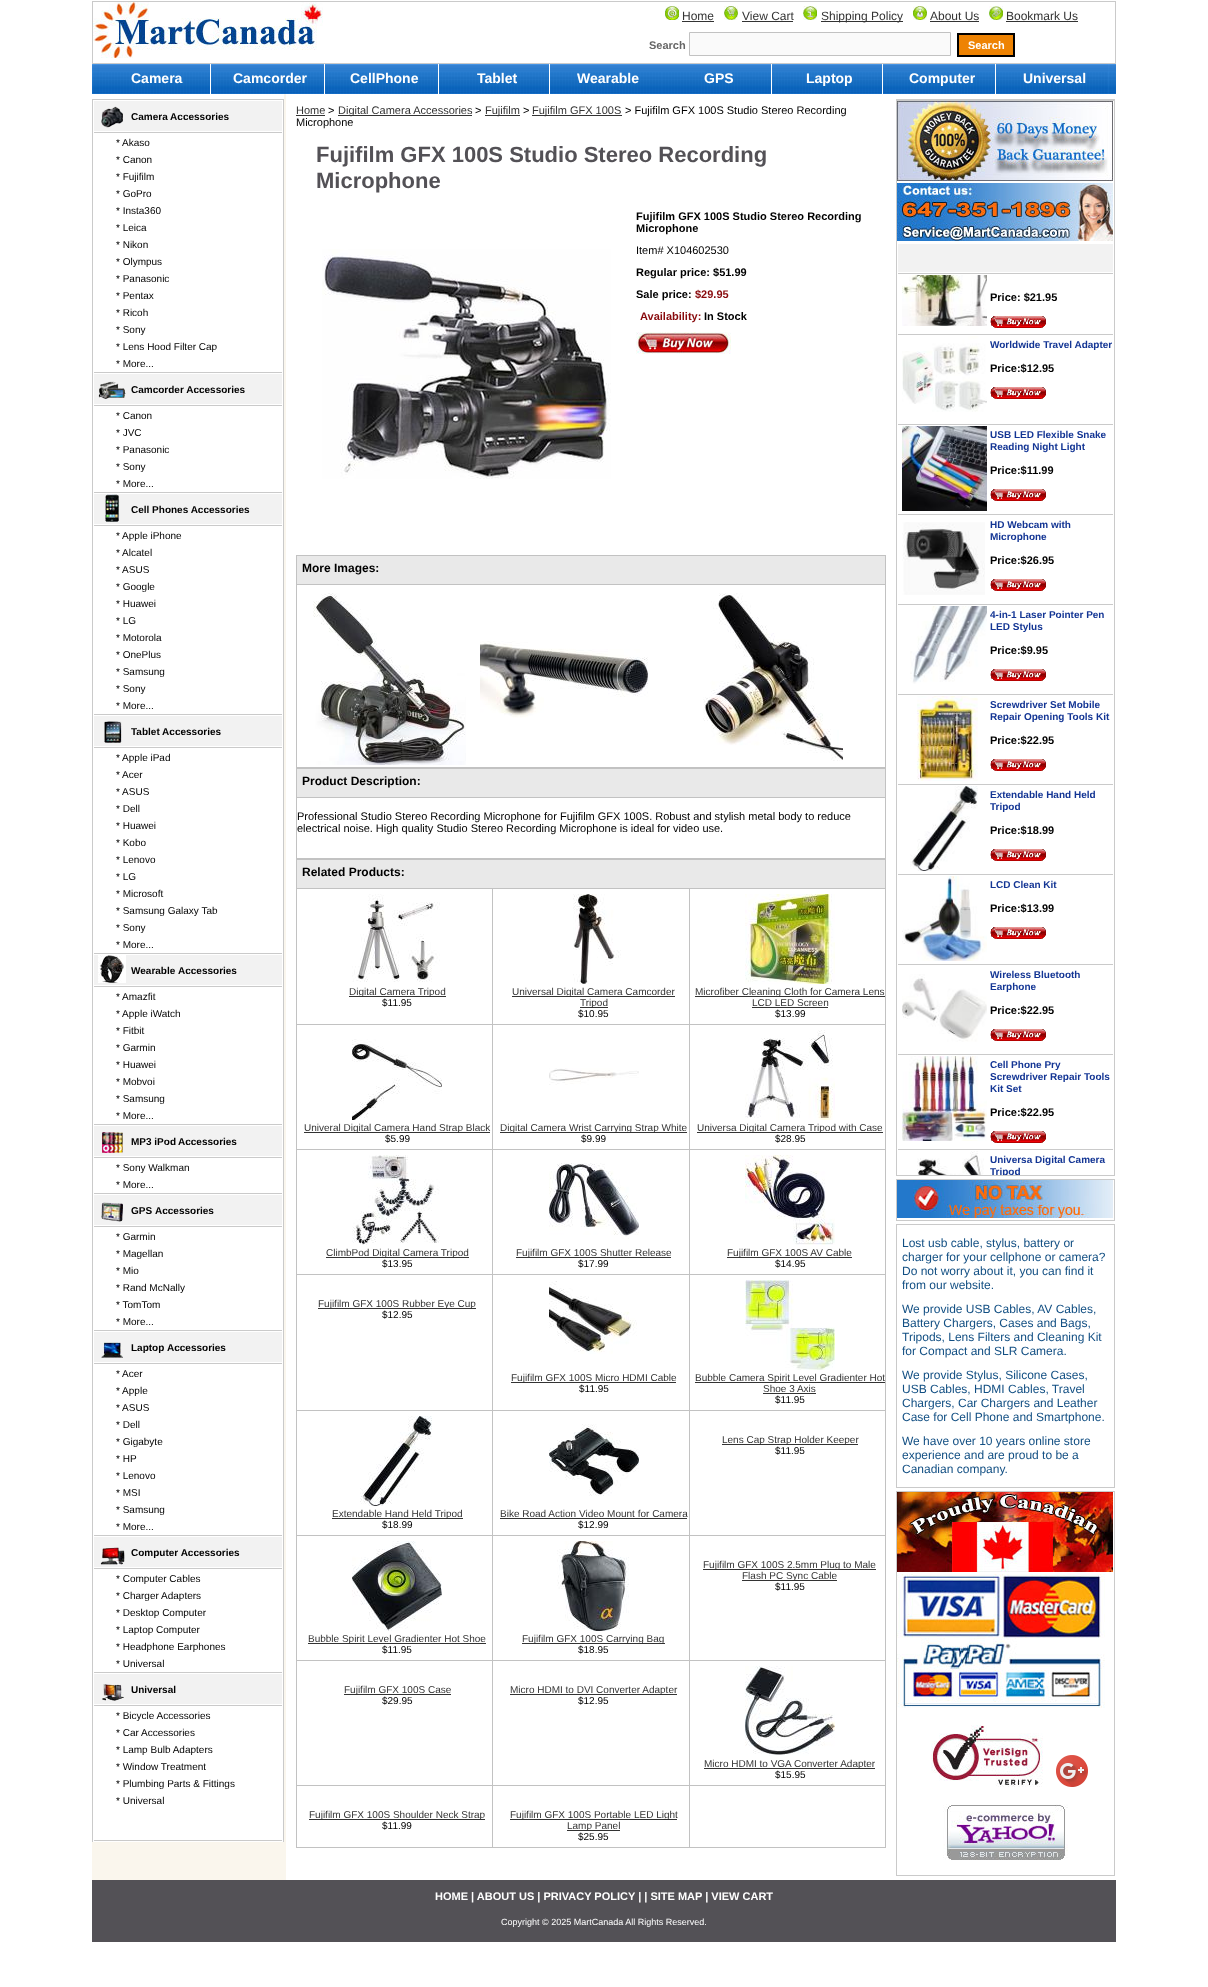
<!DOCTYPE html>
<meta charset="utf-8">
<style>body { margin: 0 } canvas { display: block }</style>
<canvas id="canvas" width="1208" height="1987"></canvas>
<script type="module">
  const canvas = document.getElementById("canvas");
  const g = canvas.getContext("2d");
  g.miterLimit = 4;
  g.fontKerning = "normal";
  function drawText(s, x, y, [font, color]) {
    g.font = font;
    g.fillStyle = color;
    g.fillText(s, x, y);
  }
  function fillBox(x, y, w, h, color) {
    g.fillStyle = color;
    g.fillRect(x, y, w, h);
  }
  async function drawPicture(src, x, y, w, h) {
    const img = new Image();
    img.src = src;
    await img.decode();
    g.drawImage(img, x, y, w, h);
  }

  const s1 = ["12px Liberation Sans", "#333333"];
  const s2 = ["bold 11px Liberation Sans", "#666666"];
  const s3 = ["bold 11px Liberation Sans", "#FFFFFF"];
  const s4 = ["bold 14px Liberation Sans", "#FFFFFF"];
  const s5 = ["bold 10px Liberation Sans", "#000000"];
  const s6 = ["10px Liberation Sans", "#000000"];
  const s7 = ["11px Liberation Sans", "#333333"];
  const s8 = ["11px Liberation Sans", "#000000"];
  const s9 = ["bold 22px Liberation Sans", "#535156"];
  const s10 = ["bold 11px Liberation Sans", "#000000"];
  const s11 = ["bold 11px Liberation Sans", "#88090C"];
  const s12 = ["bold 12px Liberation Sans", "#000000"];
  const s13 = ["10px Liberation Sans", "#333333"];
  const s14 = ["bold 10px Liberation Sans", "#133594"];
  const s15 = ["12px Liberation Sans", "#124F83"];
  const s16 = ["9px Liberation Sans", "#FFFFFF"];

  fillBox(0, 0, 1208, 1987, "#FFFFFF");
  fillBox(92, 1, 1024, 63, "#CACACA");
  fillBox(93, 2, 1022, 61, "#FFFFFF");
  await drawPicture("pic1.png", 93, 2, 230, 56);
  await drawPicture("pic2.png", 665, 6, 14, 14);
  drawText("Home", 682, 20, s1);
  fillBox(682, 21, 32, 1, "#333333");
  await drawPicture("pic3.png", 724, 6, 14, 14);
  drawText("View Cart", 742, 20, s1);
  fillBox(742, 21, 51, 1, "#333333");
  await drawPicture("pic4.png", 803, 6, 14, 14);
  fillBox(821, 21, 82, 1, "#333333");
  drawText("Shipping Policy", 821, 20, s1);
  await drawPicture("pic5.png", 913, 6, 14, 14);
  drawText("About Us", 930, 20, s1);
  fillBox(930, 21, 49, 1, "#333333");
  await drawPicture("pic6.png", 989, 6, 14, 14);
  drawText("Bookmark Us", 1006, 20, s1);
  fillBox(1006, 21, 72, 1, "#333333");
  drawText("Search", 649, 49, s2);
  g.fillStyle = "#FAFAFA";
  g.beginPath();
  g.rect(689.5, 32.5, 261, 23);
  g.fill();
  g.strokeStyle = "#C2C2C2";
  g.stroke();
  g.fillStyle = "#EE8303";
  g.beginPath();
  g.rect(958, 34, 56, 22);
  g.fill();
  g.strokeStyle = "#000000";
  g.lineWidth = 2;
  g.stroke();
  drawText("Search", 968, 49, s3);
  await drawPicture("pic7.png", 92, 64, 7, 30);
  await drawPicture("pic8.png", 99, 64, 111, 30);
  drawText("Camera", 131, 83, s4);
  await drawPicture("pic9.png", 211, 64, 113, 30);
  drawText("Camcorder", 233, 83, s4);
  await drawPicture("pic9.png", 325, 64, 113, 30);
  drawText("CellPhone", 350, 83, s4);
  await drawPicture("pic10.png", 439, 64, 110, 30);
  drawText("Tablet", 477, 83, s4);
  await drawPicture("pic11.png", 550, 64, 112, 30);
  drawText("Wearable", 577, 83, s4);
  await drawPicture("pic12.png", 662, 64, 109, 30);
  drawText("GPS", 704, 83, s4);
  await drawPicture("pic10.png", 772, 64, 110, 30);
  drawText("Laptop", 806, 83, s4);
  await drawPicture("pic11.png", 883, 64, 112, 30);
  drawText("Computer", 909, 83, s4);
  await drawPicture("pic11.png", 996, 64, 112, 30);
  drawText("Universal", 1023, 83, s4);
  await drawPicture("pic13.png", 1108, 64, 8, 30);
  fillBox(92, 94, 194, 1786, "#FAF6ED");
  fillBox(92, 94, 192, 1748, "#FFFFFF");
  fillBox(92, 99, 192, 1, "#CACACA");
  fillBox(92, 100, 1, 1742, "#CACACA");
  fillBox(94, 101, 188, 30, "#F2F2F2");
  await drawPicture("pic14.png", 101, 106, 22, 22);
  drawText("Camera Accessories", 131, 120, s5);
  fillBox(94, 132, 188, 1, "#CACACA");
  drawText("* Akaso", 116, 146, s6);
  drawText("* Canon", 116, 163, s6);
  drawText("* Fujifilm", 116, 180, s6);
  drawText("* GoPro", 116, 197, s6);
  drawText("* Insta360", 116, 214, s6);
  drawText("* Leica", 116, 231, s6);
  drawText("* Nikon", 116, 248, s6);
  drawText("* Olympus", 116, 265, s6);
  drawText("* Panasonic", 116, 282, s6);
  drawText("* Pentax", 116, 299, s6);
  drawText("* Ricoh", 116, 316, s6);
  drawText("* Sony", 116, 333, s6);
  drawText("* Lens Hood Filter Cap", 116, 350, s6);
  drawText("* More...", 116, 367, s6);
  fillBox(94, 372, 188, 1, "#CACACA");
  fillBox(94, 374, 188, 30, "#F2F2F2");
  await drawPicture("pic15.png", 98, 381, 28, 18);
  drawText("Camcorder Accessories", 131, 393, s5);
  fillBox(94, 405, 188, 1, "#CACACA");
  drawText("* Canon", 116, 419, s6);
  drawText("* JVC", 116, 436, s6);
  drawText("* Panasonic", 116, 453, s6);
  drawText("* Sony", 116, 470, s6);
  drawText("* More...", 116, 487, s6);
  fillBox(94, 492, 188, 1, "#CACACA");
  fillBox(94, 494, 188, 30, "#F2F2F2");
  await drawPicture("pic16.png", 105, 494, 15, 28);
  drawText("Cell Phones Accessories", 131, 513, s5);
  fillBox(94, 525, 188, 1, "#CACACA");
  drawText("* Apple iPhone", 116, 539, s6);
  drawText("* Alcatel", 116, 556, s6);
  drawText("* ASUS", 116, 573, s6);
  drawText("* Google", 116, 590, s6);
  drawText("* Huawei", 116, 607, s6);
  drawText("* LG", 116, 624, s6);
  drawText("* Motorola", 116, 641, s6);
  drawText("* OnePlus", 116, 658, s6);
  drawText("* Samsung", 116, 675, s6);
  drawText("* Sony", 116, 692, s6);
  drawText("* More...", 116, 709, s6);
  fillBox(94, 714, 188, 1, "#CACACA");
  fillBox(94, 716, 188, 30, "#F2F2F2");
  await drawPicture("pic17.png", 104, 721, 18, 22);
  drawText("Tablet Accessories", 131, 735, s5);
  fillBox(94, 747, 188, 1, "#CACACA");
  drawText("* Apple iPad", 116, 761, s6);
  drawText("* Acer", 116, 778, s6);
  drawText("* ASUS", 116, 795, s6);
  drawText("* Dell", 116, 812, s6);
  drawText("* Huawei", 116, 829, s6);
  drawText("* Kobo", 116, 846, s6);
  drawText("* Lenovo", 116, 863, s6);
  drawText("* LG", 116, 880, s6);
  drawText("* Microsoft", 116, 897, s6);
  drawText("* Samsung Galaxy Tab", 116, 914, s6);
  drawText("* Sony", 116, 931, s6);
  drawText("* More...", 116, 948, s6);
  fillBox(94, 953, 188, 1, "#CACACA");
  fillBox(94, 955, 188, 30, "#F2F2F2");
  await drawPicture("pic18.png", 98, 955, 28, 28);
  drawText("Wearable", 131, 974, s5);
  drawText("Accessories", 178, 974, s5);
  fillBox(94, 986, 188, 1, "#CACACA");
  drawText("* Amazfit", 116, 1000, s6);
  drawText("* Apple iWatch", 116, 1017, s6);
  drawText("* Fitbit", 116, 1034, s6);
  drawText("* Garmin", 116, 1051, s6);
  drawText("* Huawei", 116, 1068, s6);
  drawText("* Mobvoi", 116, 1085, s6);
  drawText("* Samsung", 116, 1102, s6);
  drawText("* More...", 116, 1119, s6);
  fillBox(94, 1124, 188, 1, "#CACACA");
  fillBox(94, 1126, 188, 30, "#F2F2F2");
  await drawPicture("pic19.png", 101, 1132, 22, 21);
  drawText("MP3 iPod", 131, 1145, s5);
  drawText("Accessories", 178, 1145, s5);
  fillBox(94, 1157, 188, 1, "#CACACA");
  drawText("* Sony Walkman", 116, 1171, s6);
  drawText("* More...", 116, 1188, s6);
  fillBox(94, 1193, 188, 1, "#CACACA");
  fillBox(94, 1195, 188, 30, "#F2F2F2");
  await drawPicture("pic20.png", 101, 1202, 22, 20);
  drawText("GPS", 131, 1214, s5);
  drawText("Accessories", 155, 1214, s5);
  fillBox(94, 1226, 188, 1, "#CACACA");
  drawText("* Garmin", 116, 1240, s6);
  drawText("* Magellan", 116, 1257, s6);
  drawText("* Mio", 116, 1274, s6);
  drawText("* Rand McNally", 116, 1291, s6);
  drawText("* TomTom", 116, 1308, s6);
  drawText("* More...", 116, 1325, s6);
  fillBox(94, 1330, 188, 1, "#CACACA");
  fillBox(94, 1332, 188, 30, "#F2F2F2");
  await drawPicture("pic21.png", 101, 1342, 22, 16);
  drawText("Laptop", 131, 1351, s5);
  drawText("Accessories", 167, 1351, s5);
  fillBox(94, 1363, 188, 1, "#CACACA");
  drawText("* Acer", 116, 1377, s6);
  drawText("* Apple", 116, 1394, s6);
  drawText("* ASUS", 116, 1411, s6);
  drawText("* Dell", 116, 1428, s6);
  drawText("* Gigabyte", 116, 1445, s6);
  drawText("* HP", 116, 1462, s6);
  drawText("* Lenovo", 116, 1479, s6);
  drawText("* MSI", 116, 1496, s6);
  drawText("* Samsung", 116, 1513, s6);
  drawText("* More...", 116, 1530, s6);
  fillBox(94, 1535, 188, 1, "#CACACA");
  fillBox(94, 1537, 188, 30, "#F2F2F2");
  await drawPicture("pic22.png", 100, 1547, 25, 18);
  drawText("Computer Accessories", 131, 1556, s5);
  fillBox(94, 1568, 188, 1, "#CACACA");
  drawText("* Computer Cables", 116, 1582, s6);
  drawText("* Charger Adapters", 116, 1599, s6);
  drawText("* Desktop Computer", 116, 1616, s6);
  drawText("* Laptop Computer", 116, 1633, s6);
  drawText("* Headphone Earphones", 116, 1650, s6);
  drawText("* Universal", 116, 1667, s6);
  fillBox(94, 1672, 188, 1, "#CACACA");
  fillBox(94, 1674, 188, 30, "#F2F2F2");
  await drawPicture("pic23.png", 102, 1684, 22, 17);
  drawText("Universal", 131, 1693, s5);
  fillBox(94, 1705, 188, 1, "#CACACA");
  drawText("* Bicycle Accessories", 116, 1719, s6);
  drawText("* Car Accessories", 116, 1736, s6);
  drawText("* Lamp Bulb Adapters", 116, 1753, s6);
  drawText("* Window Treatment", 116, 1770, s6);
  drawText("* Plumbing Parts & Fittings", 116, 1787, s6);
  drawText("* Universal", 116, 1804, s6);
  fillBox(94, 1840, 188, 1, "#CACACA");
  fillBox(283, 100, 1, 1742, "#CACACA");
  drawText("Home", 296, 114, s7);
  fillBox(296, 115, 29, 1, "#333333");
  drawText(">", 328, 114, s8);
  fillBox(338, 115, 134, 1, "#333333");
  drawText("Digital Camera Accessories", 338, 114, s7);
  drawText(">", 475, 114, s8);
  fillBox(485, 115, 35, 1, "#333333");
  drawText("Fujifilm", 485, 114, s7);
  drawText(">", 523, 114, s8);
  fillBox(532, 115, 90, 1, "#333333");
  drawText("Fujifilm GFX 100S", 532, 114, s7);
  drawText("> Fujifilm GFX 100S Studio Stereo Recording", 625, 114, s8);
  drawText("Microphone", 296, 126, s8);
  drawText("Fujifilm GFX 100S Studio Stereo Recording", 316, 162, s9);
  drawText("Microphone", 316, 188, s9);
  await drawPicture("pic24.png", 322, 249, 289, 230);
  drawText("Fujifilm GFX 100S Studio Stereo Recording", 636, 220, s10);
  drawText("Microphone", 636, 232, s10);
  drawText("Item# X104602530", 636, 254, s8);
  drawText("Regular price: $51.99", 636, 276, s10);
  drawText("Sale price:", 636, 298, s10);
  drawText("$29.95", 695, 298, s11);
  drawText("Availability:", 640, 320, s11);
  drawText("In Stock", 704, 320, s10);
  await drawPicture("pic25.png", 636, 332, 95, 22);
  fillBox(296, 555, 590, 1293, "#C2C2C2");
  fillBox(297, 556, 588, 28, "#E9E9E9");
  drawText("More Images:", 302, 572, s12);
  fillBox(297, 585, 588, 182, "#FFFFFF");
  await drawPicture("pic26.png", 313, 593, 153, 172);
  await drawPicture("pic27.png", 480, 641, 169, 77);
  await drawPicture("pic28.png", 703, 593, 140, 168);
  fillBox(297, 769, 588, 28, "#E9E9E9");
  drawText("Product Description:", 302, 785, s12);
  fillBox(297, 798, 588, 60, "#FFFFFF");
  drawText("Professional Studio Stereo Recording Microphone for Fujifilm GFX 100S. Robust and stylish metal body to reduce", 297, 820, s8);
  drawText("electrical noise. High quality Studio Stereo Recording Microphone is ideal for video use.", 297, 832, s8);
  fillBox(297, 860, 588, 28, "#E9E9E9");
  drawText("Related Products:", 302, 876, s12);
  fillBox(297, 889, 195, 135, "#FFFFFF");
  await drawPicture("pic29.png", 352, 894, 88, 88);
  fillBox(349, 996, 97, 1, "#333333");
  drawText("Digital Camera Tripod", 349, 995, s13);
  drawText("$11.95", 382, 1006, s6);
  fillBox(493, 889, 196, 135, "#FFFFFF");
  await drawPicture("pic30.png", 573, 894, 48, 90);
  fillBox(512, 996, 163, 1, "#333333");
  drawText("Universal Digital Camera Camcorder", 512, 995, s13);
  fillBox(580, 1007, 28, 1, "#333333");
  drawText("Tripod", 580, 1006, s13);
  drawText("$10.95", 578, 1017, s6);
  fillBox(690, 889, 195, 135, "#FFFFFF");
  await drawPicture("pic31.png", 745, 894, 90, 90);
  fillBox(695, 996, 190, 1, "#333333");
  drawText("Microfiber Cleaning Cloth for Camera Lens", 695, 995, s13);
  drawText("LCD LED Screen", 752, 1006, s13);
  fillBox(752, 1007, 76, 1, "#333333");
  drawText("$13.99", 775, 1017, s6);
  fillBox(297, 1025, 195, 124, "#FFFFFF");
  await drawPicture("pic32.png", 352, 1039, 90, 81);
  fillBox(304, 1132, 186, 1, "#333333");
  drawText("Univeral Digital Camera Hand Strap Black", 304, 1131, s13);
  drawText("$5.99", 385, 1142, s6);
  fillBox(493, 1025, 196, 124, "#FFFFFF");
  await drawPicture("pic33.png", 549, 1068, 90, 17);
  fillBox(500, 1132, 187, 1, "#333333");
  drawText("Digital Camera Wrist Carrying Strap White", 500, 1131, s13);
  drawText("$9.99", 581, 1142, s6);
  fillBox(690, 1025, 195, 124, "#FFFFFF");
  await drawPicture("pic34.png", 745, 1030, 90, 90);
  fillBox(697, 1132, 186, 1, "#333333");
  drawText("Universa Digital Camera Tripod with Case", 697, 1131, s13);
  drawText("$28.95", 775, 1142, s6);
  fillBox(297, 1150, 195, 124, "#FFFFFF");
  await drawPicture("pic35.png", 352, 1155, 88, 90);
  fillBox(326, 1257, 143, 1, "#333333");
  drawText("ClimbPod Digital Camera Tripod", 326, 1256, s13);
  drawText("$13.95", 382, 1267, s6);
  fillBox(493, 1150, 196, 124, "#FFFFFF");
  await drawPicture("pic36.png", 549, 1163, 90, 76);
  fillBox(516, 1257, 155, 1, "#333333");
  drawText("Fujifilm GFX 100S Shutter Release", 516, 1256, s13);
  drawText("$17.99", 578, 1267, s6);
  fillBox(690, 1150, 195, 124, "#FFFFFF");
  await drawPicture("pic37.png", 745, 1155, 90, 90);
  fillBox(727, 1257, 125, 1, "#333333");
  drawText("Fujifilm GFX 100S AV Cable", 727, 1256, s13);
  drawText("$14.95", 775, 1267, s6);
  fillBox(297, 1275, 195, 135, "#FFFFFF");
  fillBox(318, 1308, 158, 1, "#333333");
  drawText("Fujifilm GFX 100S Rubber Eye Cup", 318, 1307, s13);
  drawText("$12.95", 382, 1318, s6);
  fillBox(493, 1275, 196, 135, "#FFFFFF");
  await drawPicture("pic38.png", 549, 1281, 88, 73);
  fillBox(511, 1382, 165, 1, "#333333");
  drawText("Fujifilm GFX 100S Micro HDMI Cable", 511, 1381, s13);
  drawText("$11.95", 579, 1392, s6);
  fillBox(690, 1275, 195, 135, "#FFFFFF");
  await drawPicture("pic39.png", 745, 1280, 90, 90);
  fillBox(695, 1382, 190, 1, "#333333");
  drawText("Bubble Camera Spirit Level Gradienter Hot", 695, 1381, s13);
  drawText("Shoe 3 Axis", 763, 1392, s13);
  fillBox(763, 1393, 53, 1, "#333333");
  drawText("$11.95", 775, 1403, s6);
  fillBox(690, 1411, 195, 124, "#FFFFFF");
  fillBox(722, 1444, 136, 1, "#333333");
  drawText("Lens Cap Strap Holder Keeper", 722, 1443, s13);
  drawText("$11.95", 775, 1454, s6);
  fillBox(297, 1411, 195, 124, "#FFFFFF");
  await drawPicture("pic40.png", 360, 1416, 72, 90);
  fillBox(332, 1518, 131, 1, "#333333");
  drawText("Extendable Hand Held Tripod", 332, 1517, s13);
  drawText("$18.99", 382, 1528, s6);
  fillBox(493, 1411, 196, 124, "#FFFFFF");
  await drawPicture("pic41.png", 549, 1424, 90, 72);
  drawText("Bike Road Action Video Mount for Camera", 500, 1517, s13);
  fillBox(500, 1518, 187, 1, "#333333");
  drawText("$12.99", 578, 1528, s6);
  fillBox(690, 1536, 195, 124, "#FFFFFF");
  fillBox(703, 1569, 173, 1, "#333333");
  drawText("Fujifilm GFX 100S 2.5mm Plug to Male", 703, 1568, s13);
  fillBox(742, 1580, 95, 1, "#333333");
  drawText("Flash PC Sync Cable", 742, 1579, s13);
  drawText("$11.95", 775, 1590, s6);
  fillBox(297, 1536, 195, 124, "#FFFFFF");
  await drawPicture("pic42.png", 352, 1541, 90, 90);
  fillBox(308, 1643, 178, 1, "#333333");
  drawText("Bubble Spirit Level Gradienter Hot Shoe", 308, 1642, s13);
  drawText("$11.95", 382, 1653, s6);
  fillBox(493, 1536, 196, 124, "#FFFFFF");
  await drawPicture("pic43.png", 557, 1541, 72, 90);
  fillBox(522, 1643, 143, 1, "#333333");
  drawText("Fujifilm GFX 100S Carrying Bag", 522, 1642, s13);
  drawText("$18.95", 578, 1653, s6);
  fillBox(297, 1661, 195, 124, "#FFFFFF");
  fillBox(344, 1694, 107, 1, "#333333");
  drawText("Fujifilm GFX 100S Case", 344, 1693, s13);
  drawText("$29.95", 382, 1704, s6);
  fillBox(493, 1661, 196, 124, "#FFFFFF");
  fillBox(510, 1694, 167, 1, "#333333");
  drawText("Micro HDMI to DVI Converter Adapter", 510, 1693, s13);
  drawText("$12.95", 578, 1704, s6);
  fillBox(690, 1661, 195, 124, "#FFFFFF");
  await drawPicture("pic44.png", 745, 1666, 90, 90);
  fillBox(704, 1768, 171, 1, "#333333");
  drawText("Micro HDMI to VGA Converter Adapter", 704, 1767, s13);
  drawText("$15.95", 775, 1778, s6);
  fillBox(297, 1786, 195, 61, "#FFFFFF");
  fillBox(309, 1819, 176, 1, "#333333");
  drawText("Fujifilm GFX 100S Shoulder Neck Strap", 309, 1818, s13);
  drawText("$11.99", 382, 1829, s6);
  fillBox(493, 1786, 196, 61, "#FFFFFF");
  fillBox(510, 1819, 167, 1, "#333333");
  drawText("Fujifilm GFX 100S Portable LED Light", 510, 1818, s13);
  fillBox(567, 1830, 53, 1, "#333333");
  drawText("Lamp Panel", 567, 1829, s13);
  drawText("$25.95", 578, 1840, s6);
  fillBox(690, 1786, 195, 61, "#FFFFFF");
  fillBox(896, 99, 219, 2, "#CACACA");
  fillBox(896, 101, 1, 1074, "#CACACA");
  await drawPicture("pic45.png", 897, 101, 216, 80);
  fillBox(1114, 101, 1, 1074, "#CACACA");
  await drawPicture("pic46.png", 897, 183, 216, 58);
  fillBox(898, 244, 215, 28, "#F2F2F2");
  fillBox(898, 273, 215, 1, "#CACACA");
  await drawPicture("pic47.png", 902, 275, 85, 51);
  drawText("Price: $21.95", 990, 301, s10);
  await drawPicture("pic48.png", 990, 316, 56, 12);
  fillBox(898, 334, 215, 1, "#CACACA");
  await drawPicture("pic49.png", 902, 336, 85, 76);
  drawText("Worldwide Travel Adapter", 990, 348, s14);
  drawText("Price:$12.95", 990, 372, s10);
  await drawPicture("pic48.png", 990, 387, 56, 12);
  fillBox(898, 424, 215, 1, "#CACACA");
  await drawPicture("pic50.png", 902, 426, 85, 85);
  drawText("USB LED Flexible Snake", 990, 438, s14);
  drawText("Reading Night Light", 990, 450, s14);
  drawText("Price:$11.99", 990, 474, s10);
  await drawPicture("pic48.png", 990, 489, 56, 12);
  fillBox(898, 514, 215, 1, "#CACACA");
  await drawPicture("pic51.png", 902, 522, 83, 73);
  drawText("HD Webcam with", 990, 528, s14);
  drawText("Microphone", 990, 540, s14);
  drawText("Price:$26.95", 990, 564, s10);
  await drawPicture("pic48.png", 990, 579, 56, 12);
  fillBox(898, 604, 215, 1, "#CACACA");
  await drawPicture("pic52.png", 910, 606, 77, 78);
  drawText("4-in-1 Laser Pointer Pen", 990, 618, s14);
  drawText("LED Stylus", 990, 630, s14);
  drawText("Price:$9.95", 990, 654, s10);
  await drawPicture("pic48.png", 990, 669, 56, 12);
  fillBox(898, 694, 215, 1, "#CACACA");
  await drawPicture("pic53.png", 917, 696, 61, 85);
  drawText("Screwdriver Set Mobile", 990, 708, s14);
  drawText("Repair Opening Tools Kit", 990, 720, s14);
  drawText("Price:$22.95", 990, 744, s10);
  await drawPicture("pic48.png", 990, 759, 56, 12);
  fillBox(898, 784, 215, 1, "#CACACA");
  await drawPicture("pic54.png", 910, 786, 68, 85);
  drawText("Extendable Hand Held", 990, 798, s14);
  drawText("Tripod", 990, 810, s14);
  drawText("Price:$18.99", 990, 834, s10);
  await drawPicture("pic48.png", 990, 849, 56, 12);
  fillBox(898, 874, 215, 1, "#CACACA");
  await drawPicture("pic55.png", 902, 876, 85, 85);
  drawText("LCD Clean Kit", 990, 888, s14);
  drawText("Price:$13.99", 990, 912, s10);
  await drawPicture("pic48.png", 990, 927, 56, 12);
  fillBox(898, 964, 215, 1, "#CACACA");
  await drawPicture("pic56.png", 902, 974, 85, 68);
  drawText("Wireless Bluetooth", 990, 978, s14);
  drawText("Earphone", 990, 990, s14);
  drawText("Price:$22.95", 990, 1014, s10);
  await drawPicture("pic48.png", 990, 1029, 56, 12);
  fillBox(898, 1054, 215, 1, "#CACACA");
  await drawPicture("pic57.png", 902, 1056, 85, 85);
  drawText("Cell Phone Pry", 990, 1068, s14);
  drawText("Screwdriver Repair Tools", 990, 1080, s14);
  drawText("Kit Set", 990, 1092, s14);
  drawText("Price:$22.95", 990, 1116, s10);
  await drawPicture("pic48.png", 990, 1131, 56, 12);
  fillBox(898, 1149, 215, 1, "#CACACA");
  await drawPicture("pic58.png", 917, 1151, 67, 24);
  drawText("Universa Digital Camera", 990, 1163, s14);
  g.save();
  g.beginPath();
  g.rect(897, 275, 217, 900);
  g.clip();
  drawText("Tripod", 990, 1175, s14);
  g.restore();
  fillBox(896, 1175, 219, 1, "#CACACA");
  fillBox(896, 1179, 219, 1, "#CACACA");
  fillBox(896, 1180, 1, 40, "#CACACA");
  await drawPicture("pic59.png", 897, 1180, 216, 38);
  fillBox(1114, 1180, 1, 40, "#CACACA");
  fillBox(896, 1220, 219, 1, "#CACACA");
  fillBox(896, 1224, 219, 1, "#CACACA");
  fillBox(896, 1225, 1, 262, "#CACACA");
  drawText("Lost usb cable, stylus, battery or", 902, 1247, s15);
  drawText("charger for your cellphone or camera?", 902, 1261, s15);
  drawText("Do not worry about it, you can find it", 902, 1275, s15);
  drawText("from our website.", 902, 1289, s15);
  drawText("We provide USB Cables, AV Cables,", 902, 1313, s15);
  drawText("Battery Chargers, Cases and Bags,", 902, 1327, s15);
  drawText("Tripods, Lens Filters and Cleaning Kit", 902, 1341, s15);
  drawText("for Compact and SLR Camera.", 902, 1355, s15);
  drawText("We provide Stylus, Silicone Cases,", 902, 1379, s15);
  drawText("USB Cables, HDMI Cables, Travel", 902, 1393, s15);
  drawText("Chargers, Car Chargers and Leather", 902, 1407, s15);
  drawText("Case for Cell Phone and Smartphone.", 902, 1421, s15);
  drawText("We have over 10 years online store", 902, 1445, s15);
  drawText("experience and are proud to be a", 902, 1459, s15);
  drawText("Canadian company.", 902, 1473, s15);
  fillBox(1114, 1225, 1, 262, "#CACACA");
  fillBox(896, 1487, 219, 1, "#CACACA");
  fillBox(896, 1491, 219, 1, "#CACACA");
  fillBox(896, 1492, 1, 383, "#CACACA");
  await drawPicture("pic60.png", 897, 1492, 216, 80);
  await drawPicture("pic61.png", 897, 1574, 208, 134);
  await drawPicture("pic62.png", 931, 1725, 112, 62);
  await drawPicture("pic63.png", 1056, 1755, 32, 32);
  await drawPicture("pic64.png", 943, 1804, 125, 56);
  fillBox(1114, 1492, 1, 383, "#CACACA");
  fillBox(896, 1875, 219, 1, "#CACACA");
  fillBox(92, 1880, 1024, 62, "#535156");
  drawText("HOME | ABOUT US | PRIVACY POLICY | | SITE MAP | VIEW CART", 435, 1900, s3);
  drawText("Copyright © 2025 MartCanada All Rights Reserved.", 501, 1925, s16);
</script>
